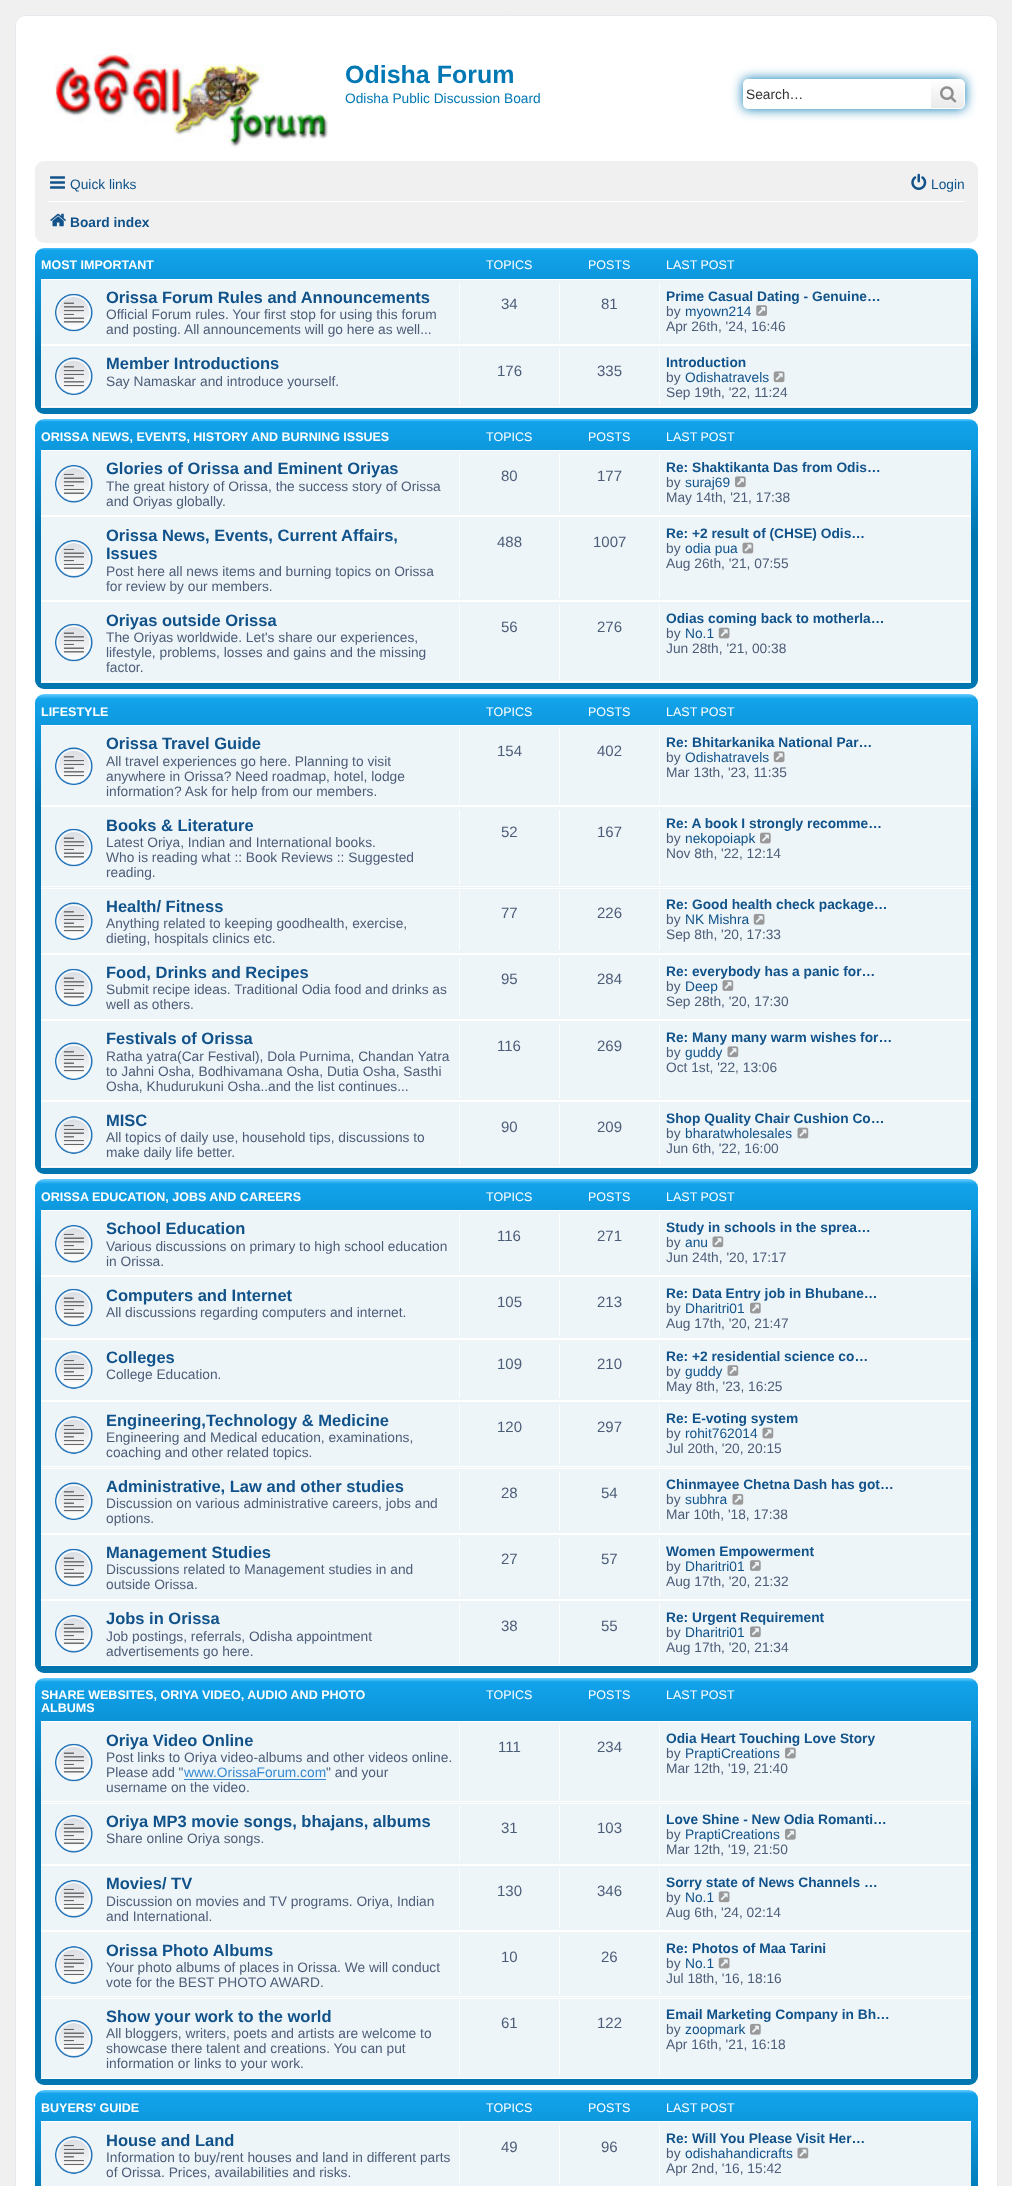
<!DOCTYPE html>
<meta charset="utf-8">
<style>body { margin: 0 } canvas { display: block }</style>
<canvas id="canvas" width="1012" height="2186"></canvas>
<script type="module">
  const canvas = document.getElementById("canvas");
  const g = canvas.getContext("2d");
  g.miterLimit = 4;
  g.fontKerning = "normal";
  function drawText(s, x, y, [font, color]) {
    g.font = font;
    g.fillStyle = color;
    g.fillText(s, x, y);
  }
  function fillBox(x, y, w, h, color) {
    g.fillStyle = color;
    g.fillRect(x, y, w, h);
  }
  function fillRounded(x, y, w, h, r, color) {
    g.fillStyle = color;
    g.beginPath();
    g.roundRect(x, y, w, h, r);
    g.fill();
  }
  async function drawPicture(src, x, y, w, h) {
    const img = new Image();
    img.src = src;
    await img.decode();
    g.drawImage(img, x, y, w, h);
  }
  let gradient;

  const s1 = ["bold 25px Liberation Sans", "#0178B4"];
  const s2 = ["13.75px Liberation Sans", "#0178B4"];
  const s3 = ["13.75px Liberation Sans", "#333333"];
  const s4 = ["13.75px Liberation Sans", "#105289"];
  const s5 = ["bold 13.75px Liberation Sans", "#105289"];
  const s6 = ["bold 12.5px Liberation Sans", "#FFFFFF"];
  const s7 = ["12.5px Liberation Sans", "#FFFFFF"];
  const s8 = ["bold 16.5px Liberation Sans", "#105289"];
  const s9 = ["13.75px Liberation Sans", "#4C5D77"];
  const s10 = ["15px Liberation Sans", "#4C5D77"];
  const s11 = ["13.75px Liberation Sans", "#368AD2"];

  fillBox(0, 0, 1012, 2186, "#F1F0F0");
  g.fillStyle = "#FFFFFF";
  g.beginPath();
  g.roundRect(15.5, 15.5, 982, 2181, 9.5);
  g.fill();
  g.strokeStyle = "#E6E9ED";
  g.stroke();
  await drawPicture("pic1.png", 54, 53, 275, 95);
  drawText("Odisha Forum", 345, 83, s1);
  drawText("Odisha Public Discussion Board", 345, 103, s2);
  g.fillStyle = "#0075B0";
  g.filter = "blur(6px)";
  g.beginPath();
  g.roundRect(743, 79, 222, 30, 5);
  g.fill();
  g.filter = "none";
  g.fillStyle = "#FFFFFF";
  g.beginPath();
  g.roundRect(743, 79, 187, 30, [5, 0, 0, 5]);
  g.fill();
  drawText("Search…", 746, 99, s3);
  gradient = g.createLinearGradient(948, 79, 948, 109);
  gradient.addColorStop(0, "#FFFFFF");
  gradient.addColorStop(1, "#E9E9E9");
  g.fillStyle = gradient;
  g.beginPath();
  g.roundRect(930.5, 79.5, 34, 29, [0, 4.5, 4.5, 0]);
  g.fill();
  g.strokeStyle = "#FFFFFF";
  g.stroke();
  await drawPicture("pic2.png", 940, 86, 17, 17);
  fillRounded(35, 161, 943, 82, 9, "#F1F0F0");
  await drawPicture("pic3.png", 50, 176, 15, 13);
  drawText("Quick links", 70, 189, s4);
  await drawPicture("pic4.png", 911, 173, 16, 17);
  drawText("Login", 931, 189, s4);
  fillBox(48, 201, 917, 1, "#FFFFFF");
  await drawPicture("pic5.png", 50, 213, 16, 14);
  drawText("Board index", 70, 227, s5);
  gradient = g.createLinearGradient(506, 247, 506, 414);
  gradient.addColorStop(0, "#6ACEFF");
  gradient.addColorStop(0.02, "#12A3EB");
  gradient.addColorStop(0.69, "#0076B1");
  gradient.addColorStop(1, "#0076B1");
  g.fillStyle = gradient;
  g.beginPath();
  g.roundRect(35, 248, 943, 166, 9);
  g.fill();
  drawText("MOST IMPORTANT", 41, 269, s6);
  drawText("TOPICS", 486, 269, s7);
  drawText("POSTS", 588, 269, s7);
  drawText("LAST POST", 666, 269, s7);
  fillBox(41, 280, 930, 128, "#EEF5F9");
  fillBox(41, 279, 930, 1, "#FFFFFF");
  fillBox(41, 344, 930, 2, "#FFFFFF");
  await drawPicture("pic6.png", 55, 293, 38, 39);
  drawText("Orissa Forum Rules and Announcements", 106, 303, s8);
  drawText("Official Forum rules. Your first stop for using this forum", 106, 319, s9);
  drawText("and posting. All announcements will go here as well...", 106, 334, s9);
  fillBox(459, 283, 1, 58, "#FFFFFF");
  drawText("34", 501, 309, s10);
  fillBox(559, 283, 1, 58, "#FFFFFF");
  drawText("81", 601, 309, s10);
  fillBox(659, 283, 1, 58, "#FFFFFF");
  drawText("Prime Сasual Dating - Genuine…", 666, 301, s5);
  drawText("by", 666, 316, s9);
  drawText("myown214", 685, 316, s4);
  await drawPicture("pic7.png", 756, 305, 11, 11);
  drawText("Apr 26th, '24, 16:46", 666, 331, s9);
  fillBox(41, 406, 930, 1, "#FFFFFF");
  await drawPicture("pic8.png", 55, 357, 38, 38);
  drawText("Member Introductions", 106, 369, s8);
  drawText("Say Namaskar and introduce yourself.", 106, 386, s9);
  fillBox(459, 349, 1, 55, "#FFFFFF");
  drawText("176", 497, 376, s10);
  fillBox(559, 349, 1, 55, "#FFFFFF");
  drawText("335", 597, 376, s10);
  fillBox(659, 349, 1, 55, "#FFFFFF");
  drawText("Introduction", 666, 367, s5);
  drawText("by", 666, 382, s9);
  drawText("Odishatravels", 685, 382, s4);
  await drawPicture("pic9.png", 773, 371, 12, 12);
  drawText("Sep 19th, '22, 11:24", 666, 397, s9);
  gradient = g.createLinearGradient(506, 419, 506, 689);
  gradient.addColorStop(0, "#6ACEFF");
  gradient.addColorStop(0.01, "#12A3EB");
  gradient.addColorStop(0.43, "#0076B1");
  gradient.addColorStop(1, "#0076B1");
  g.fillStyle = gradient;
  g.beginPath();
  g.roundRect(35, 419, 943, 270, 9);
  g.fill();
  drawText("ORISSA NEWS, EVENTS, HISTORY AND BURNING ISSUES", 41, 441, s6);
  drawText("TOPICS", 486, 441, s7);
  drawText("POSTS", 588, 441, s7);
  drawText("LAST POST", 666, 441, s7);
  fillBox(41, 451, 930, 232, "#EEF5F9");
  fillBox(41, 450, 930, 1, "#FFFFFF");
  fillBox(41, 515, 930, 2, "#FFFFFF");
  await drawPicture("pic10.png", 55, 465, 38, 38);
  drawText("Glories of Orissa and Eminent Oriyas", 106, 474, s8);
  drawText("The great history of Orissa, the success story of Orissa", 106, 491, s9);
  drawText("and Oriyas globally.", 106, 506, s9);
  fillBox(459, 454, 1, 59, "#FFFFFF");
  drawText("80", 501, 481, s10);
  fillBox(559, 454, 1, 59, "#FFFFFF");
  drawText("177", 597, 481, s10);
  fillBox(659, 454, 1, 59, "#FFFFFF");
  drawText("Re: Shaktikanta Das from Odis…", 666, 472, s5);
  drawText("by", 666, 487, s9);
  drawText("suraj69", 685, 487, s4);
  await drawPicture("pic11.png", 735, 476, 11, 12);
  drawText("May 14th, '21, 17:38", 666, 502, s9);
  fillBox(41, 600, 930, 2, "#FFFFFF");
  await drawPicture("pic10.png", 55, 540, 38, 38);
  drawText("Orissa News, Events, Current Affairs,", 106, 541, s8);
  drawText("Issues", 106, 559, s8);
  drawText("Post here all news items and burning topics on Orissa", 106, 576, s9);
  drawText("for review by our members.", 106, 591, s9);
  fillBox(459, 520, 1, 78, "#FFFFFF");
  drawText("488", 497, 547, s10);
  fillBox(559, 520, 1, 78, "#FFFFFF");
  drawText("1007", 593, 547, s10);
  fillBox(659, 520, 1, 78, "#FFFFFF");
  drawText("Re: +2 result of (CHSE) Odis…", 666, 538, s5);
  drawText("by", 666, 553, s9);
  drawText("odia pua", 685, 553, s4);
  await drawPicture("pic12.png", 742, 542, 12, 12);
  drawText("Aug 26th, '21, 07:55", 666, 568, s9);
  fillBox(41, 681, 930, 1, "#FFFFFF");
  await drawPicture("pic13.png", 55, 623, 38, 39);
  drawText("Oriyas outside Orissa", 106, 626, s8);
  drawText("The Oriyas worldwide. Let's share our experiences,", 106, 642, s9);
  drawText("lifestyle, problems, losses and gains and the missing", 106, 657, s9);
  drawText("factor.", 106, 672, s9);
  fillBox(459, 605, 1, 74, "#FFFFFF");
  drawText("56", 501, 632, s10);
  fillBox(559, 605, 1, 74, "#FFFFFF");
  drawText("276", 597, 632, s10);
  fillBox(659, 605, 1, 74, "#FFFFFF");
  drawText("Odias coming back to motherla…", 666, 623, s5);
  drawText("by", 666, 638, s9);
  drawText("No.1", 685, 638, s4);
  await drawPicture("pic14.png", 718, 627, 12, 12);
  drawText("Jun 28th, '21, 00:38", 666, 653, s9);
  gradient = g.createLinearGradient(506, 694, 506, 1174);
  gradient.addColorStop(0, "#6ACEFF");
  gradient.addColorStop(0.01, "#12A3EB");
  gradient.addColorStop(0.24, "#0076B1");
  gradient.addColorStop(1, "#0076B1");
  g.fillStyle = gradient;
  g.beginPath();
  g.roundRect(35, 694, 943, 480, 9);
  g.fill();
  drawText("LIFESTYLE", 41, 716, s6);
  drawText("TOPICS", 486, 716, s7);
  drawText("POSTS", 588, 716, s7);
  drawText("LAST POST", 666, 716, s7);
  fillBox(41, 726, 930, 442, "#EEF5F9");
  fillBox(41, 725, 930, 1, "#FFFFFF");
  fillBox(41, 805, 930, 2, "#FFFFFF");
  await drawPicture("pic8.png", 55, 747, 38, 38);
  drawText("Orissa Travel Guide", 106, 749, s8);
  drawText("All travel experiences go here. Planning to visit", 106, 766, s9);
  drawText("anywhere in Orissa? Need roadmap, hotel, lodge", 106, 781, s9);
  drawText("information? Ask for help from our members.", 106, 796, s9);
  fillBox(459, 729, 1, 74, "#FFFFFF");
  drawText("154", 497, 756, s10);
  fillBox(559, 729, 1, 74, "#FFFFFF");
  drawText("402", 597, 756, s10);
  fillBox(659, 729, 1, 74, "#FFFFFF");
  drawText("Re: Bhitarkanika National Par…", 666, 747, s5);
  drawText("by", 666, 762, s9);
  drawText("Odishatravels", 685, 762, s4);
  await drawPicture("pic9.png", 773, 751, 12, 12);
  drawText("Mar 13th, '23, 11:35", 666, 777, s9);
  fillBox(41, 886, 930, 1, "#FFFFFF");
  await drawPicture("pic13.png", 55, 828, 38, 39);
  drawText("Books & Literature", 106, 831, s8);
  drawText("Latest Oriya, Indian and International books.", 106, 847, s9);
  drawText("Who is reading what :: Book Reviews :: Suggested", 106, 862, s9);
  drawText("reading.", 106, 877, s9);
  fillBox(459, 810, 1, 74, "#FFFFFF");
  drawText("52", 501, 837, s10);
  fillBox(559, 810, 1, 74, "#FFFFFF");
  drawText("167", 597, 837, s10);
  fillBox(659, 810, 1, 74, "#FFFFFF");
  drawText("Re: A book I strongly recomme…", 666, 828, s5);
  drawText("by", 666, 843, s9);
  drawText("nekopoiapk", 685, 843, s4);
  await drawPicture("pic15.png", 760, 832, 11, 12);
  drawText("Nov 8th, '22, 12:14", 666, 858, s9);
  fillBox(41, 888, 930, 1, "#FFFFFF");
  fillBox(41, 953, 930, 2, "#FFFFFF");
  await drawPicture("pic8.png", 55, 902, 38, 38);
  drawText("Health/ Fitness", 106, 912, s8);
  drawText("Anything related to keeping goodhealth, exercise,", 106, 928, s9);
  drawText("dieting, hospitals clinics etc.", 106, 943, s9);
  fillBox(459, 891, 1, 59, "#FFFFFF");
  drawText("77", 501, 918, s10);
  fillBox(559, 891, 1, 59, "#FFFFFF");
  drawText("226", 597, 918, s10);
  fillBox(659, 891, 1, 59, "#FFFFFF");
  drawText("Re: Good health check package…", 666, 909, s5);
  drawText("by", 666, 924, s9);
  drawText("NK Mishra", 685, 924, s4);
  await drawPicture("pic16.png", 753, 913, 12, 12);
  drawText("Sep 8th, '20, 17:33", 666, 939, s9);
  fillBox(41, 1019, 930, 2, "#FFFFFF");
  await drawPicture("pic13.png", 55, 968, 38, 39);
  drawText("Food, Drinks and Recipes", 106, 978, s8);
  drawText("Submit recipe ideas. Traditional Odia food and drinks as", 106, 994, s9);
  drawText("well as others.", 106, 1009, s9);
  fillBox(459, 958, 1, 58, "#FFFFFF");
  drawText("95", 501, 984, s10);
  fillBox(559, 958, 1, 58, "#FFFFFF");
  drawText("284", 597, 984, s10);
  fillBox(659, 958, 1, 58, "#FFFFFF");
  drawText("Re: everybody has a panic for…", 666, 976, s5);
  drawText("by", 666, 991, s9);
  drawText("Deep", 685, 991, s4);
  await drawPicture("pic17.png", 722, 980, 12, 11);
  drawText("Sep 28th, '20, 17:30", 666, 1006, s9);
  fillBox(41, 1100, 930, 2, "#FFFFFF");
  await drawPicture("pic8.png", 55, 1042, 38, 38);
  drawText("Festivals of Orissa", 106, 1044, s8);
  drawText("Ratha yatra(Car Festival), Dola Purnima, Chandan Yatra", 106, 1061, s9);
  drawText("to Jahni Osha, Bodhivamana Osha, Dutia Osha, Sasthi", 106, 1076, s9);
  drawText("Osha, Khudurukuni Osha..and the list continues...", 106, 1091, s9);
  fillBox(459, 1024, 1, 74, "#FFFFFF");
  drawText("116", 497, 1051, s10);
  fillBox(559, 1024, 1, 74, "#FFFFFF");
  drawText("269", 597, 1051, s10);
  fillBox(659, 1024, 1, 74, "#FFFFFF");
  drawText("Re: Many many warm wishes for…", 666, 1042, s5);
  drawText("by", 666, 1057, s9);
  drawText("guddy", 685, 1057, s4);
  await drawPicture("pic18.png", 727, 1046, 12, 12);
  drawText("Oct 1st, '22, 13:06", 666, 1072, s9);
  fillBox(41, 1166, 930, 1, "#FFFFFF");
  await drawPicture("pic19.png", 55, 1116, 38, 38);
  drawText("MISC", 106, 1126, s8);
  drawText("All topics of daily use, household tips, discussions to", 106, 1142, s9);
  drawText("make daily life better.", 106, 1157, s9);
  fillBox(459, 1105, 1, 59, "#FFFFFF");
  drawText("90", 501, 1132, s10);
  fillBox(559, 1105, 1, 59, "#FFFFFF");
  drawText("209", 597, 1132, s10);
  fillBox(659, 1105, 1, 59, "#FFFFFF");
  drawText("Shop Quality Chair Cushion Co…", 666, 1123, s5);
  drawText("by", 666, 1138, s9);
  drawText("bharatwholesales", 685, 1138, s4);
  await drawPicture("pic12.png", 797, 1127, 12, 12);
  drawText("Jun 6th, '22, 16:00", 666, 1153, s9);
  gradient = g.createLinearGradient(506, 1179, 506, 1673);
  gradient.addColorStop(0, "#6ACEFF");
  gradient.addColorStop(0.01, "#12A3EB");
  gradient.addColorStop(0.23, "#0076B1");
  gradient.addColorStop(1, "#0076B1");
  g.fillStyle = gradient;
  g.beginPath();
  g.roundRect(35, 1179, 943, 494, 9);
  g.fill();
  drawText("ORISSA EDUCATION, JOBS AND CAREERS", 41, 1201, s6);
  drawText("TOPICS", 486, 1201, s7);
  drawText("POSTS", 588, 1201, s7);
  drawText("LAST POST", 666, 1201, s7);
  fillBox(41, 1211, 930, 454, "#EEF5F9");
  fillBox(41, 1210, 930, 1, "#FFFFFF");
  fillBox(41, 1275, 930, 2, "#FFFFFF");
  await drawPicture("pic10.png", 55, 1225, 38, 38);
  drawText("School Education", 106, 1234, s8);
  drawText("Various discussions on primary to high school education", 106, 1251, s9);
  drawText("in Orissa.", 106, 1266, s9);
  fillBox(459, 1214, 1, 59, "#FFFFFF");
  drawText("116", 497, 1241, s10);
  fillBox(559, 1214, 1, 59, "#FFFFFF");
  drawText("271", 597, 1241, s10);
  fillBox(659, 1214, 1, 59, "#FFFFFF");
  drawText("Study in schools in the sprea…", 666, 1232, s5);
  drawText("by", 666, 1247, s9);
  drawText("anu", 685, 1247, s4);
  await drawPicture("pic18.png", 712, 1236, 12, 12);
  drawText("Jun 24th, '20, 17:17", 666, 1262, s9);
  fillBox(41, 1338, 930, 2, "#FFFFFF");
  await drawPicture("pic13.png", 55, 1288, 38, 39);
  drawText("Computers and Internet", 106, 1301, s8);
  drawText("All discussions regarding computers and internet.", 106, 1317, s9);
  fillBox(459, 1280, 1, 55, "#FFFFFF");
  drawText("105", 497, 1307, s10);
  fillBox(559, 1280, 1, 55, "#FFFFFF");
  drawText("213", 597, 1307, s10);
  fillBox(659, 1280, 1, 55, "#FFFFFF");
  drawText("Re: Data Entry job in Bhubane…", 666, 1298, s5);
  drawText("by", 666, 1313, s9);
  drawText("Dharitri01", 685, 1313, s4);
  await drawPicture("pic15.png", 750, 1302, 11, 12);
  drawText("Aug 17th, '20, 21:47", 666, 1328, s9);
  fillBox(41, 1400, 930, 2, "#FFFFFF");
  await drawPicture("pic19.png", 55, 1351, 38, 38);
  drawText("Colleges", 106, 1363, s8);
  drawText("College Education.", 106, 1379, s9);
  fillBox(459, 1343, 1, 55, "#FFFFFF");
  drawText("109", 497, 1369, s10);
  fillBox(559, 1343, 1, 55, "#FFFFFF");
  drawText("210", 597, 1369, s10);
  fillBox(659, 1343, 1, 55, "#FFFFFF");
  drawText("Re: +2 residential science co…", 666, 1361, s5);
  drawText("by", 666, 1376, s9);
  drawText("guddy", 685, 1376, s4);
  await drawPicture("pic17.png", 727, 1365, 12, 11);
  drawText("May 8th, '23, 16:25", 666, 1391, s9);
  fillBox(41, 1466, 930, 1, "#FFFFFF");
  await drawPicture("pic19.png", 55, 1416, 38, 38);
  drawText("Engineering,Technology & Medicine", 106, 1426, s8);
  drawText("Engineering and Medical education, examinations,", 106, 1442, s9);
  drawText("coaching and other related topics.", 106, 1457, s9);
  fillBox(459, 1405, 1, 59, "#FFFFFF");
  drawText("120", 497, 1432, s10);
  fillBox(559, 1405, 1, 59, "#FFFFFF");
  drawText("297", 597, 1432, s10);
  fillBox(659, 1405, 1, 59, "#FFFFFF");
  drawText("Re: E-voting system", 666, 1423, s5);
  drawText("by", 666, 1438, s9);
  drawText("rohit762014", 685, 1438, s4);
  await drawPicture("pic12.png", 762, 1427, 12, 12);
  drawText("Jul 20th, '20, 20:15", 666, 1453, s9);
  fillBox(41, 1468, 930, 1, "#FFFFFF");
  fillBox(41, 1533, 930, 2, "#FFFFFF");
  await drawPicture("pic8.png", 55, 1482, 38, 38);
  drawText("Administrative, Law and other studies", 106, 1492, s8);
  drawText("Discussion on various administrative careers, jobs and", 106, 1508, s9);
  drawText("options.", 106, 1523, s9);
  fillBox(459, 1471, 1, 59, "#FFFFFF");
  drawText("28", 501, 1498, s10);
  fillBox(559, 1471, 1, 59, "#FFFFFF");
  drawText("54", 601, 1498, s10);
  fillBox(659, 1471, 1, 59, "#FFFFFF");
  drawText("Chinmayee Chetna Dash has got…", 666, 1489, s5);
  drawText("by", 666, 1504, s9);
  drawText("subhra", 685, 1504, s4);
  await drawPicture("pic20.png", 732, 1493, 12, 12);
  drawText("Mar 10th, '18, 17:38", 666, 1519, s9);
  fillBox(41, 1599, 930, 2, "#FFFFFF");
  await drawPicture("pic21.png", 55, 1548, 38, 39);
  drawText("Management Studies", 106, 1558, s8);
  drawText("Discussions related to Management studies in and", 106, 1574, s9);
  drawText("outside Orissa.", 106, 1589, s9);
  fillBox(459, 1538, 1, 58, "#FFFFFF");
  drawText("27", 501, 1564, s10);
  fillBox(559, 1538, 1, 58, "#FFFFFF");
  drawText("57", 601, 1564, s10);
  fillBox(659, 1538, 1, 58, "#FFFFFF");
  drawText("Women Empowerment", 666, 1556, s5);
  drawText("by", 666, 1571, s9);
  drawText("Dharitri01", 685, 1571, s4);
  await drawPicture("pic22.png", 750, 1560, 11, 11);
  drawText("Aug 17th, '20, 21:32", 666, 1586, s9);
  fillBox(41, 1665, 930, 1, "#FFFFFF");
  await drawPicture("pic10.png", 55, 1615, 38, 38);
  drawText("Jobs in Orissa", 106, 1624, s8);
  drawText("Job postings, referrals, Odisha appointment", 106, 1641, s9);
  drawText("advertisements go here.", 106, 1656, s9);
  fillBox(459, 1604, 1, 59, "#FFFFFF");
  drawText("38", 501, 1631, s10);
  fillBox(559, 1604, 1, 59, "#FFFFFF");
  drawText("55", 601, 1631, s10);
  fillBox(659, 1604, 1, 59, "#FFFFFF");
  drawText("Re: Urgent Requirement", 666, 1622, s5);
  drawText("by", 666, 1637, s9);
  drawText("Dharitri01", 685, 1637, s4);
  await drawPicture("pic11.png", 750, 1626, 11, 12);
  drawText("Aug 17th, '20, 21:34", 666, 1652, s9);
  gradient = g.createLinearGradient(506, 1678, 506, 2085);
  gradient.addColorStop(0, "#6ACEFF");
  gradient.addColorStop(0.01, "#12A3EB");
  gradient.addColorStop(0.28, "#0076B1");
  gradient.addColorStop(1, "#0076B1");
  g.fillStyle = gradient;
  g.beginPath();
  g.roundRect(35, 1678, 943, 407, 9);
  g.fill();
  drawText("SHARE WEBSITES, ORIYA VIDEO, AUDIO AND PHOTO", 41, 1699, s6);
  drawText("ALBUMS", 41, 1712, s6);
  drawText("TOPICS", 486, 1699, s7);
  drawText("POSTS", 588, 1699, s7);
  drawText("LAST POST", 666, 1699, s7);
  fillBox(41, 1722, 930, 356, "#EEF5F9");
  fillBox(41, 1721, 930, 1, "#FFFFFF");
  fillBox(41, 1801, 930, 1, "#FFFFFF");
  await drawPicture("pic13.png", 55, 1743, 38, 39);
  drawText("Oriya Video Online", 106, 1746, s8);
  drawText("Post links to Oriya video-albums and other videos online.", 106, 1762, s9);
  drawText("Please add \"", 106, 1777, s9);
  drawText("www.OrissaForum.com", 184, 1777, s11);
  fillBox(184, 1779, 142, 1, "#368AD2");
  drawText("\" and your", 326, 1777, s9);
  drawText("username on the video.", 106, 1792, s9);
  fillBox(459, 1725, 1, 74, "#FFFFFF");
  drawText("111", 498, 1752, s10);
  fillBox(559, 1725, 1, 74, "#FFFFFF");
  drawText("234", 597, 1752, s10);
  fillBox(659, 1725, 1, 74, "#FFFFFF");
  drawText("Odia Heart Touching Love Story", 666, 1743, s5);
  drawText("by", 666, 1758, s9);
  drawText("PraptiCreations", 685, 1758, s4);
  await drawPicture("pic15.png", 785, 1747, 11, 12);
  drawText("Mar 12th, '19, 21:40", 666, 1773, s9);
  fillBox(41, 1803, 930, 1, "#FFFFFF");
  fillBox(41, 1864, 930, 2, "#FFFFFF");
  await drawPicture("pic10.png", 55, 1815, 38, 38);
  drawText("Oriya MP3 movie songs, bhajans, albums", 106, 1827, s8);
  drawText("Share online Oriya songs.", 106, 1843, s9);
  fillBox(459, 1806, 1, 55, "#FFFFFF");
  drawText("31", 501, 1833, s10);
  fillBox(559, 1806, 1, 55, "#FFFFFF");
  drawText("103", 597, 1833, s10);
  fillBox(659, 1806, 1, 55, "#FFFFFF");
  drawText("Love Shine - New Odia Romanti…", 666, 1824, s5);
  drawText("by", 666, 1839, s9);
  drawText("PraptiCreations", 685, 1839, s4);
  await drawPicture("pic23.png", 785, 1828, 11, 12);
  drawText("Mar 12th, '19, 21:50", 666, 1854, s9);
  fillBox(41, 1930, 930, 2, "#FFFFFF");
  await drawPicture("pic10.png", 55, 1880, 38, 38);
  drawText("Movies/ TV", 106, 1889, s8);
  drawText("Discussion on movies and TV programs. Oriya, Indian", 106, 1906, s9);
  drawText("and International.", 106, 1921, s9);
  fillBox(459, 1869, 1, 59, "#FFFFFF");
  drawText("130", 497, 1896, s10);
  fillBox(559, 1869, 1, 59, "#FFFFFF");
  drawText("346", 597, 1896, s10);
  fillBox(659, 1869, 1, 59, "#FFFFFF");
  drawText("Sorry state of News Channels …", 666, 1887, s5);
  drawText("by", 666, 1902, s9);
  drawText("No.1", 685, 1902, s4);
  await drawPicture("pic9.png", 718, 1891, 12, 12);
  drawText("Aug 6th, '24, 02:14", 666, 1917, s9);
  fillBox(41, 1996, 930, 1, "#FFFFFF");
  await drawPicture("pic19.png", 55, 1946, 38, 38);
  drawText("Orissa Photo Albums", 106, 1956, s8);
  drawText("Your photo albums of places in Orissa. We will conduct", 106, 1972, s9);
  drawText("vote for the BEST PHOTO AWARD.", 106, 1987, s9);
  fillBox(459, 1935, 1, 59, "#FFFFFF");
  drawText("10", 501, 1962, s10);
  fillBox(559, 1935, 1, 59, "#FFFFFF");
  drawText("26", 601, 1962, s10);
  fillBox(659, 1935, 1, 59, "#FFFFFF");
  drawText("Re: Photos of Maa Tarini", 666, 1953, s5);
  drawText("by", 666, 1968, s9);
  drawText("No.1", 685, 1968, s4);
  await drawPicture("pic14.png", 718, 1957, 12, 12);
  drawText("Jul 18th, '16, 18:16", 666, 1983, s9);
  fillBox(41, 1998, 930, 1, "#FFFFFF");
  fillBox(41, 2078, 930, 1, "#FFFFFF");
  await drawPicture("pic10.png", 55, 2020, 38, 38);
  drawText("Show your work to the world", 106, 2022, s8);
  drawText("All bloggers, writers, poets and artists are welcome to", 106, 2038, s9);
  drawText("showcase there talent and creations. You can put", 106, 2053, s9);
  drawText("information or links to your work.", 106, 2068, s9);
  fillBox(459, 2001, 1, 74, "#FFFFFF");
  drawText("61", 501, 2028, s10);
  fillBox(559, 2001, 1, 74, "#FFFFFF");
  drawText("122", 597, 2028, s10);
  fillBox(659, 2001, 1, 74, "#FFFFFF");
  drawText("Email Marketing Company in Bh…", 666, 2019, s5);
  drawText("by", 666, 2034, s9);
  drawText("zoopmark", 685, 2034, s4);
  await drawPicture("pic23.png", 750, 2023, 11, 12);
  drawText("Apr 16th, '21, 16:18", 666, 2049, s9);
  gradient = g.createLinearGradient(506, 2090, 506, 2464);
  gradient.addColorStop(0, "#6ACEFF");
  gradient.addColorStop(0.01, "#12A3EB");
  gradient.addColorStop(0.31, "#0076B1");
  gradient.addColorStop(1, "#0076B1");
  g.fillStyle = gradient;
  g.beginPath();
  g.roundRect(35, 2090, 943, 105, 9);
  g.fill();
  drawText("BUYERS' GUIDE", 41, 2112, s6);
  drawText("TOPICS", 486, 2112, s7);
  drawText("POSTS", 588, 2112, s7);
  drawText("LAST POST", 666, 2112, s7);
  fillBox(41, 2122, 930, 64, "#EEF5F9");
  fillBox(41, 2121, 930, 1, "#FFFFFF");
  await drawPicture("pic19.png", 55, 2136, 38, 38);
  drawText("House and Land", 106, 2146, s8);
  drawText("Information to buy/rent houses and land in different parts", 106, 2162, s9);
  drawText("of Orissa. Prices, availabilities and risks.", 106, 2177, s9);
  fillBox(459, 2125, 1, 59, "#FFFFFF");
  drawText("49", 501, 2152, s10);
  fillBox(559, 2125, 1, 59, "#FFFFFF");
  drawText("96", 601, 2152, s10);
  fillBox(659, 2125, 1, 59, "#FFFFFF");
  drawText("Re: Will You Please Visit Her…", 666, 2143, s5);
  drawText("by", 666, 2158, s9);
  drawText("odishahandicrafts", 685, 2158, s4);
  await drawPicture("pic12.png", 797, 2147, 12, 12);
  drawText("Apr 2nd, '16, 15:42", 666, 2173, s9);
</script>
